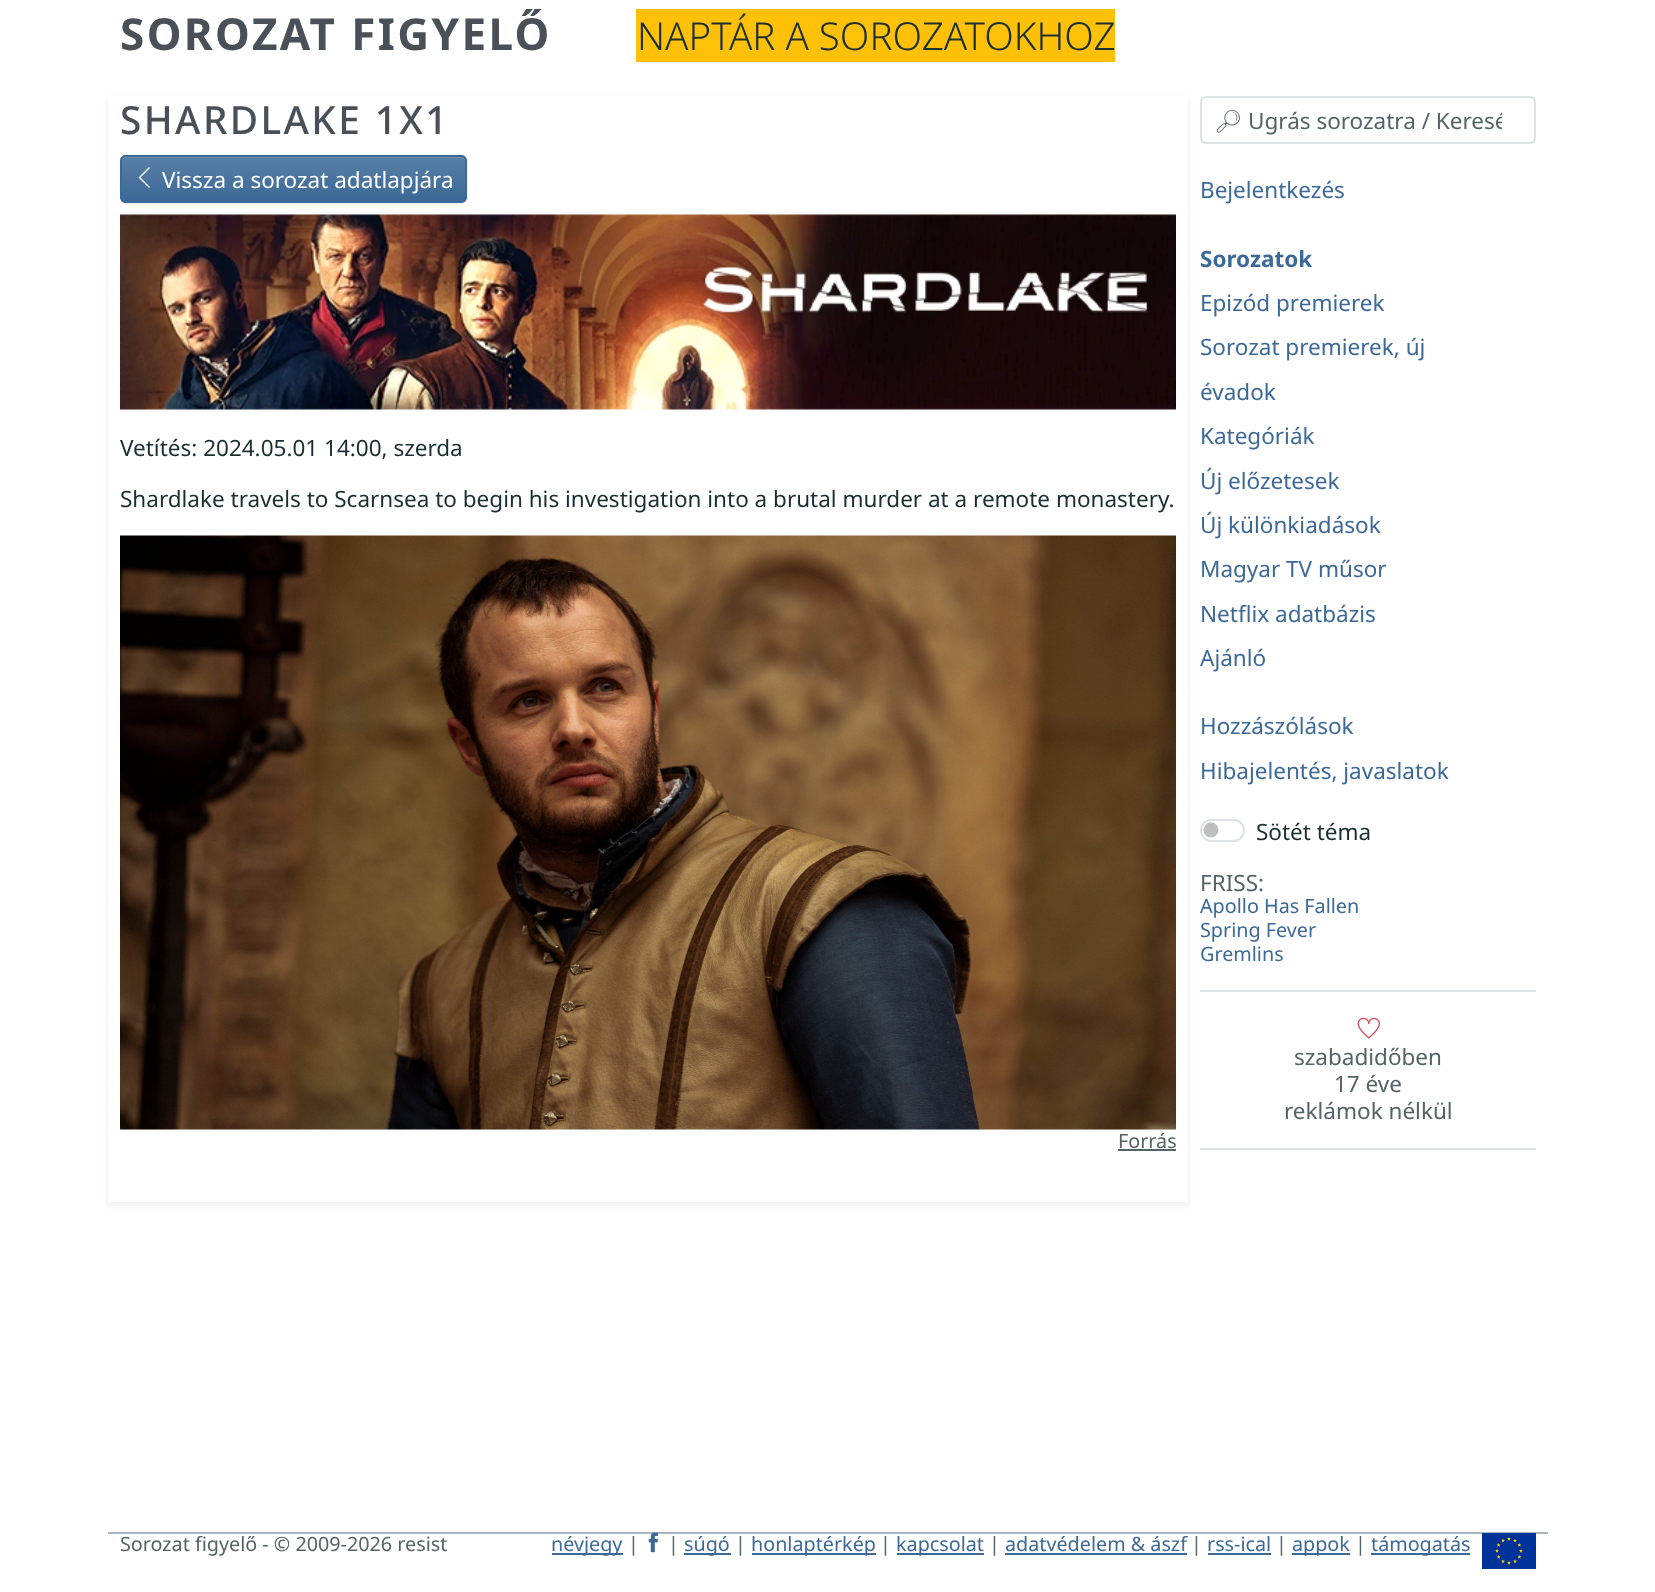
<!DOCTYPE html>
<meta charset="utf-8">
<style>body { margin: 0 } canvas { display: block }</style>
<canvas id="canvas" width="1655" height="1592"></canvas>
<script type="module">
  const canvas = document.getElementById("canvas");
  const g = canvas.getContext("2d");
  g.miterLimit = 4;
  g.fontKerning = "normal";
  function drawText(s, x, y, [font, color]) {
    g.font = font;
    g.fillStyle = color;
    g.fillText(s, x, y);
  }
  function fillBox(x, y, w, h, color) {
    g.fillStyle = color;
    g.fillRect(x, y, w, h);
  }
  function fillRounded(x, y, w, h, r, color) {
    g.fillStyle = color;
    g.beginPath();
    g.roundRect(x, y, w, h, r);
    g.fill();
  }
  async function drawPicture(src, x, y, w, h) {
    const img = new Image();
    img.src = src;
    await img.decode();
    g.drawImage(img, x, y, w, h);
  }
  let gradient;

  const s1 = ["bold 44px Noto Sans", "#495057"];
  const s2 = ["300 38.5px Noto Sans", "#1B2F33"];
  const s3 = ["500 38.75px Noto Sans", "#495057"];
  const s4 = ["22.5px Noto Sans", "#FFFFFF"];
  const s5 = ["22.5px Noto Sans", "#1B2F33"];
  const s6 = ["19.75px Noto Sans", "#546366"];
  const s7 = ["22.5px Noto Emoji", "#546366"];
  const s8 = ["22.5px Noto Sans", "#546366"];
  const s9 = ["22.5px Noto Sans", "#3C6997"];
  const s10 = ["bold 22.5px Noto Sans", "#3C6997"];
  const s11 = ["19.75px Noto Sans", "#3C6997"];

  fillBox(0, 0, 1655, 1592, "#FFFFFF");
  g.letterSpacing = "2.4px";
  drawText("SOROZAT FIGYELŐ", 120, 50, s1);
  fillBox(636, 9, 479, 53, "#FFC107");
  g.letterSpacing = "0px";
  drawText("NAPTÁR A SOROZATOKHOZ", 637, 50, s2);
  g.save();
  g.beginPath();
  g.moveTo(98, 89);
  g.lineTo(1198, 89);
  g.lineTo(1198, 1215);
  g.lineTo(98, 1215);
  g.closePath();
  g.moveTo(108, 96);
  g.lineTo(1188, 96);
  g.lineTo(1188, 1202);
  g.lineTo(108, 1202);
  g.closePath();
  g.clip("evenodd");
  g.fillStyle = "rgba(0, 0, 0, 0.07)";
  g.filter = "blur(3px)";
  g.beginPath();
  g.rect(108, 99, 1080, 1106);
  g.fill();
  g.filter = "none";
  g.restore();
  g.letterSpacing = "2.4px";
  drawText("SHARDLAKE 1X1", 120, 134, s3);
  g.fillStyle = "rgba(0, 0, 0, 0.07)";
  g.filter = "blur(1px)";
  g.beginPath();
  g.roundRect(120, 156, 347, 48, 6);
  g.fill();
  g.filter = "none";
  fillRounded(120, 155, 347, 48, 6, "#3C6997");
  g.save();
  g.beginPath();
  g.roundRect(120, 155, 347, 48, 6);
  g.clip();
  gradient = g.createLinearGradient(293, 156, 293, 201);
  gradient.addColorStop(0, "rgba(255, 255, 255, 0.15)");
  gradient.addColorStop(1, "rgba(255, 255, 255, 0)");
  g.fillStyle = gradient;
  g.fillRect(120, 156, 347, 39);
  g.restore();
  g.fillStyle = "#7292B4";
  g.beginPath();
  g.moveTo(126, 158);
  g.lineTo(460, 158);
  g.bezierCurveTo(463, 158, 465, 160, 465, 162);
  g.bezierCurveTo(465, 159, 463, 156, 460, 156);
  g.lineTo(127, 156);
  g.bezierCurveTo(124, 156, 122, 159, 122, 162);
  g.bezierCurveTo(122, 160, 124, 158, 126, 158);
  g.closePath();
  g.fill();
  g.beginPath();
  g.roundRect(121, 156, 345, 46, 5);
  g.strokeStyle = "#3C6997";
  g.lineWidth = 2;
  g.stroke();
  g.fillStyle = "#FFFFFF";
  g.beginPath();
  g.moveTo(140.5, 177.5);
  g.lineTo(150, 187);
  g.lineTo(149, 188);
  g.lineTo(138.5, 177.5);
  g.lineTo(149, 167);
  g.lineTo(150, 168);
  g.closePath();
  g.fill();
  g.letterSpacing = "0px";
  drawText("Vissza a sorozat adatlapjára", 162, 188, s4);
  await drawPicture("pic1.png", 120, 214, 1056, 196);
  drawText("Vetítés: 2024.05.01 14:00, szerda", 120, 456, s5);
  drawText("Shardlake travels to Scarnsea to begin his investigation into a brutal murder at a remote monastery.", 120, 507, s5);
  await drawPicture("pic2.png", 120, 535, 1056, 595);
  drawText("Forrás", 1118, 1148, s6);
  fillBox(1118, 1149, 58, 2, "#546366");
  g.beginPath();
  g.roundRect(1201, 97, 334, 46, 5);
  g.strokeStyle = "#DEE2E6";
  g.stroke();
  drawText("🔎︎", 1214, 129, s7);
  g.save();
  g.beginPath();
  g.rect(1214, 105, 288, 30);
  g.clip();
  drawText("Ugrás sorozatra / Keresé", 1248, 129, s8);
  g.restore();
  drawText("Bejelentkezés", 1200, 198, s9);
  drawText("Sorozatok", 1200, 267, s10);
  drawText("Epizód premierek", 1200, 311, s9);
  drawText("Sorozat premierek, új", 1200, 355, s9);
  drawText("évadok", 1200, 400, s9);
  drawText("Kategóriák", 1200, 444, s9);
  drawText("Új előzetesek", 1200, 489, s9);
  drawText("Új különkiadások", 1200, 533, s9);
  drawText("Magyar TV műsor", 1200, 577, s9);
  drawText("Netflix adatbázis", 1200, 622, s9);
  drawText("Ajánló", 1200, 666, s9);
  drawText("Hozzászólások", 1200, 734, s9);
  drawText("Hibajelentés, javaslatok", 1200, 779, s9);
  g.fillStyle = "#BFBFBF";
  g.beginPath();
  g.arc(1211, 830, 7.5, 0, Math.PI * 2);
  g.fill();
  g.beginPath();
  g.roundRect(1201, 820, 43, 21, 10.5);
  g.stroke();
  drawText("Sötét téma", 1256, 840, s5);
  drawText("FRISS:", 1200, 891, s8);
  drawText("Apollo Has Fallen", 1200, 913, s11);
  drawText("Spring Fever", 1200, 937, s11);
  drawText("Gremlins", 1200, 961, s11);
  fillBox(1200, 990, 336, 2, "#DEE2E6");
  fillBox(1200, 1148, 336, 2, "#DEE2E6");
  await drawPicture("pic3.png", 1357, 1017, 23, 22);
  drawText("szabadidőben", 1294, 1065, s8);
  drawText("17 éve", 1334, 1092, s8);
  drawText("reklámok nélkül", 1284, 1119, s8);
  fillBox(108, 1532, 1440, 2, "#ADB5BD");
  drawText("Sorozat figyelő - © 2009-2026 resist", 120, 1551, s6);
  fillBox(552, 1553, 71, 2, "#3C6997");
  drawText("névjegy", 551, 1551, s11);
  drawText("|", 628, 1551, s6);
  await drawPicture("pic4.png", 648, 1532, 10, 21);
  drawText("|", 668, 1551, s6);
  fillBox(684, 1553, 47, 2, "#3C6997");
  drawText("súgó", 684, 1551, s11);
  drawText("|", 735, 1551, s6);
  fillBox(752, 1553, 124, 2, "#3C6997");
  drawText("honlaptérkép", 751, 1551, s11);
  drawText("|", 880, 1551, s6);
  fillBox(897, 1553, 87, 2, "#3C6997");
  drawText("kapcsolat", 896, 1551, s11);
  drawText("|", 989, 1551, s6);
  drawText("adatvédelem & ászf", 1005, 1551, s11);
  fillBox(1005, 1553, 182, 2, "#3C6997");
  drawText("|", 1191, 1551, s6);
  drawText("rss-ical", 1207, 1551, s11);
  fillBox(1208, 1553, 63, 2, "#3C6997");
  drawText("|", 1276, 1551, s6);
  fillBox(1292, 1553, 58, 2, "#3C6997");
  drawText("appok", 1292, 1551, s11);
  drawText("|", 1355, 1551, s6);
  fillBox(1371, 1553, 99, 2, "#3C6997");
  drawText("támogatás", 1371, 1551, s11);
  await drawPicture("pic5.png", 1482, 1533, 54, 36);
</script>
